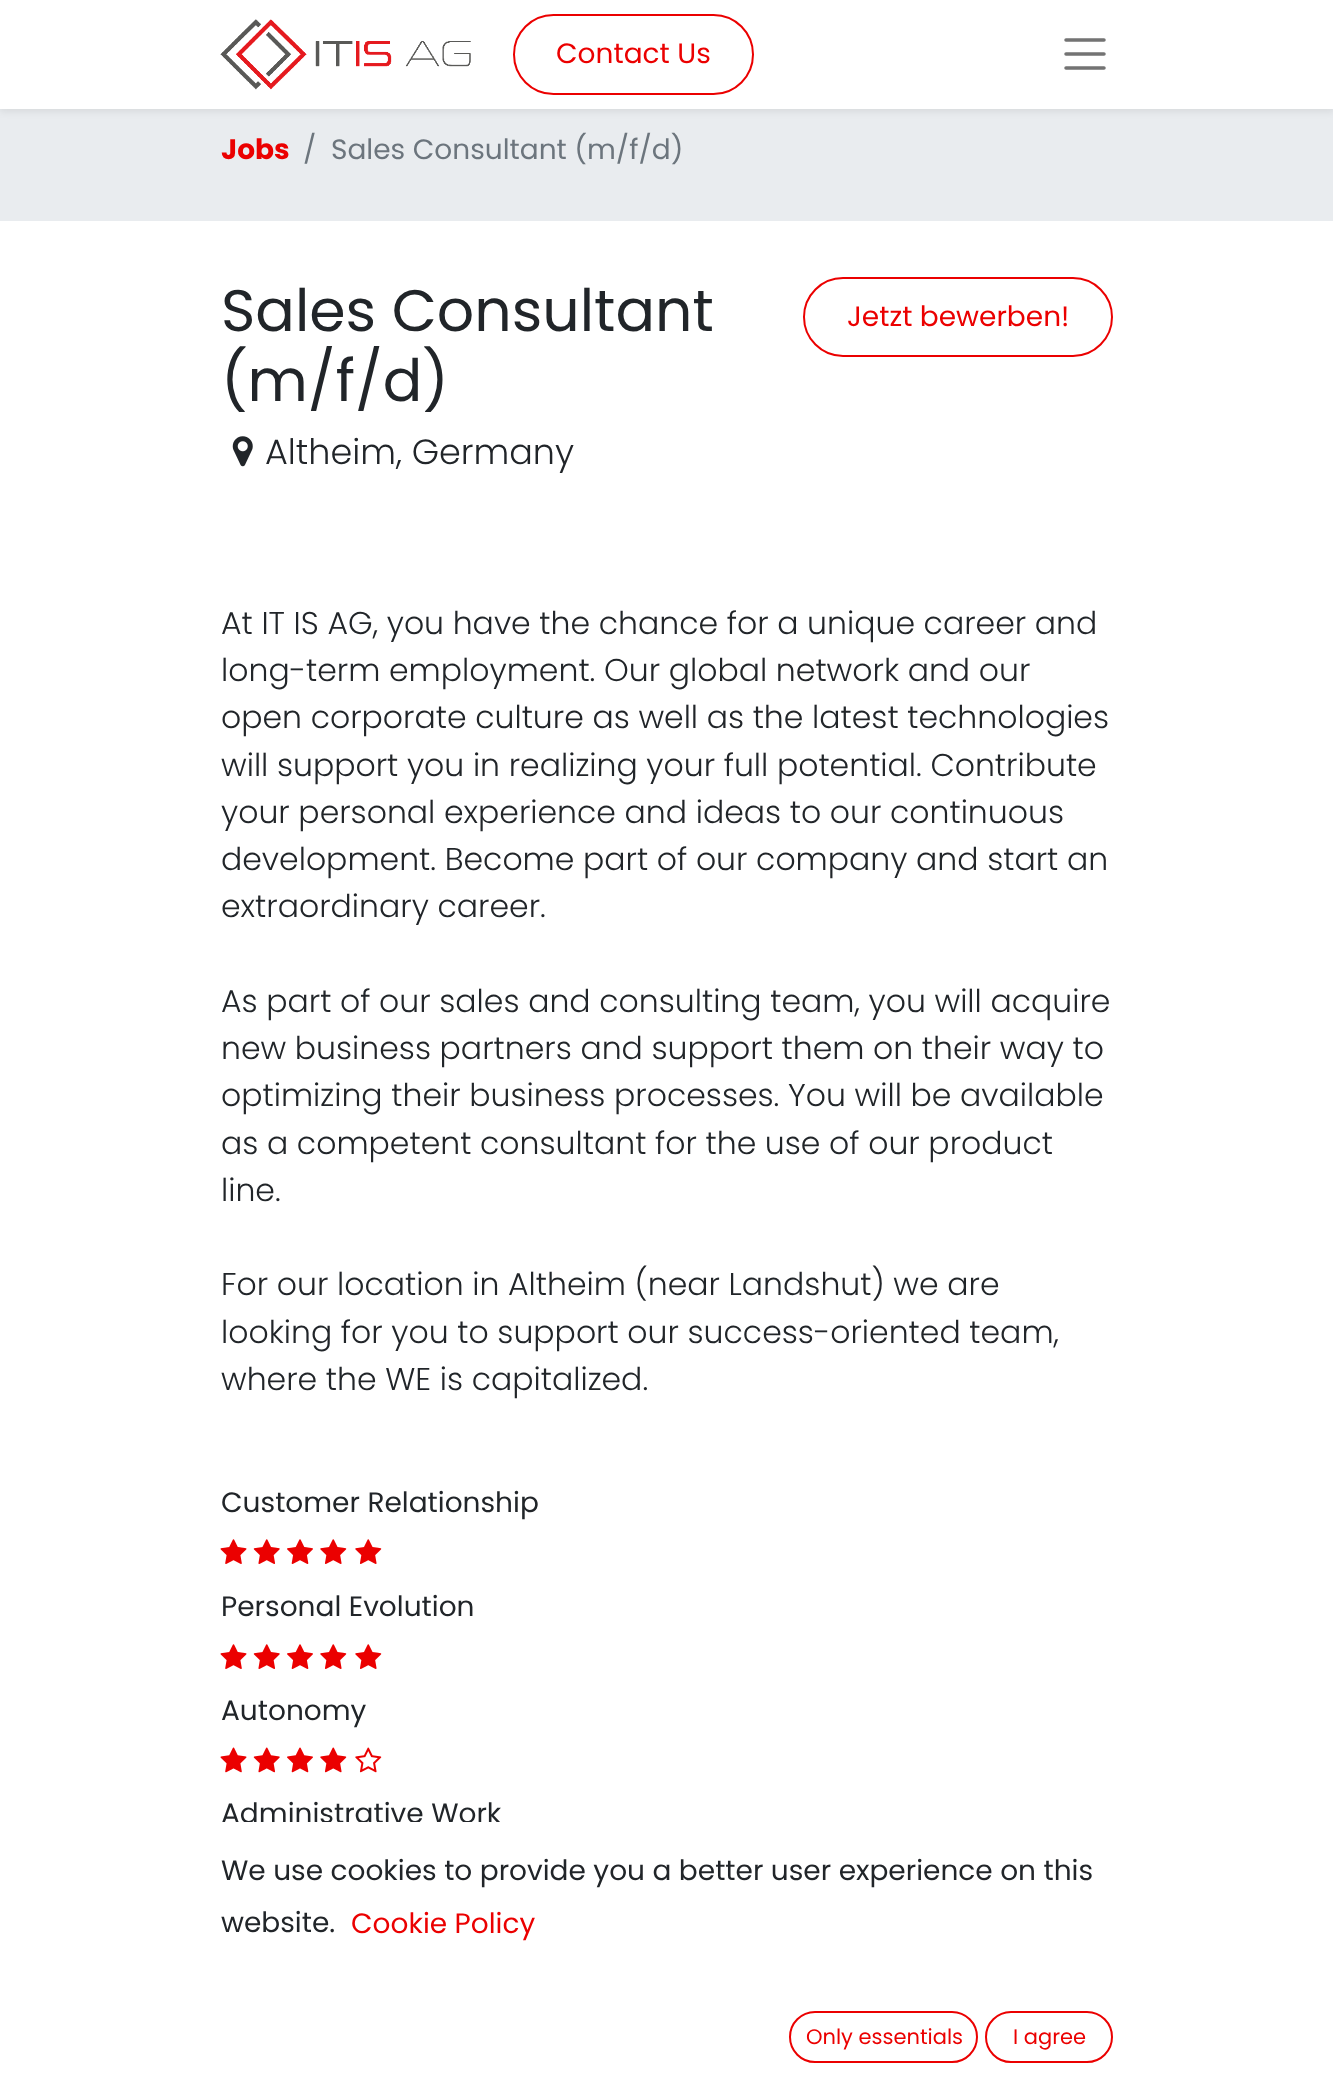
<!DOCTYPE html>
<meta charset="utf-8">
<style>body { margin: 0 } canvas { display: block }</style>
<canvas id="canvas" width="1333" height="2090"></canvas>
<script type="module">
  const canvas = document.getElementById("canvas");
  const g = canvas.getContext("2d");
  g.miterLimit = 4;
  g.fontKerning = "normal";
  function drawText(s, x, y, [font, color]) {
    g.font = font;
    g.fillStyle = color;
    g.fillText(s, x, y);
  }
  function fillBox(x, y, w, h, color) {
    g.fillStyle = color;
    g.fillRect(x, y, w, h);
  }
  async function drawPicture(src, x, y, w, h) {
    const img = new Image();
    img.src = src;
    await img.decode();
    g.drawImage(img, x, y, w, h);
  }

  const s1 = ["28px Poppins", "#EB0000"];
  const s2 = ["bold 28px Poppins", "#EB0000"];
  const s3 = ["28px Poppins", "#6C757D"];
  const s4 = ["58.5px Poppins", "#212529"];
  const s5 = ["300 35px Poppins", "#212529"];
  const s6 = ["300 31.5px Poppins", "#212529"];
  const s7 = ["28px Poppins", "#212529"];
  const s8 = ["21px Poppins", "#EB0000"];

  fillBox(0, 0, 1333, 2090, "#FFFFFF");
  fillBox(0, 109, 1333, 112, "#E9ECEF");
  g.fillStyle = "rgba(0, 0, 0, 0.07)";
  g.filter = "blur(3.5px)";
  g.beginPath();
  g.rect(0, 4, 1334, 108);
  g.fill();
  g.filter = "none";
  fillBox(0, 0, 1333, 109, "#FFFFFF");
  await drawPicture("pic1.png", 220, 19, 251, 71);
  g.beginPath();
  g.roundRect(514, 15, 239, 79, 39.5);
  g.strokeStyle = "#EB0000";
  g.lineWidth = 2;
  g.stroke();
  drawText("Contact Us", 556, 63, s1);
  g.beginPath();
  g.moveTo(1066, 40);
  g.lineTo(1104, 40);
  g.moveTo(1066, 54);
  g.lineTo(1104, 54);
  g.moveTo(1066, 68);
  g.lineTo(1104, 68);
  g.strokeStyle = "#737373";
  g.lineWidth = 3.5;
  g.lineCap = "round";
  g.stroke();
  drawText("Jobs", 221, 159, s2);
  drawText("/", 303, 159, s3);
  drawText("Sales Consultant (m/f/d)", 331, 159, s3);
  drawText("Sales Consultant", 221, 331, s4);
  drawText("(m/f/d)", 221, 401, s4);
  g.beginPath();
  g.roundRect(804, 278, 308, 78, 39);
  g.strokeStyle = "#EB0000";
  g.lineWidth = 2;
  g.stroke();
  drawText("Jetzt bewerben!", 847, 326, s1);
  await drawPicture("pic2.png", 232, 436, 21, 31);
  drawText("Altheim, Germany", 265, 464, s5);
  drawText("At IT IS AG, you have the chance for a unique career and", 221, 634, s6);
  drawText("long-term employment. Our global network and our", 221, 681, s6);
  drawText("open corporate culture as well as the latest technologies", 221, 728, s6);
  drawText("will support you in realizing your full potential. Contribute", 221, 776, s6);
  drawText("your personal experience and ideas to our continuous", 221, 823, s6);
  drawText("development. Become part of our company and start an", 221, 870, s6);
  drawText("extraordinary career.", 221, 917, s6);
  drawText("As part of our sales and consulting team, you will acquire", 221, 1012, s6);
  drawText("new business partners and support them on their way to", 221, 1059, s6);
  drawText("optimizing their business processes. You will be available", 221, 1106, s6);
  drawText("as a competent consultant for the use of our product", 221, 1154, s6);
  drawText("line.", 221, 1201, s6);
  drawText("For our location in Altheim (near Landshut) we are", 221, 1295, s6);
  drawText("looking for you to support our success-oriented team,", 221, 1343, s6);
  drawText("where the WE is capitalized.", 221, 1390, s6);
  drawText("Customer Relationship", 221, 1512, s7);
  await drawPicture("pic3.png", 220, 1539, 27, 25);
  await drawPicture("pic4.png", 253, 1539, 27, 25);
  await drawPicture("pic5.png", 287, 1539, 26, 25);
  await drawPicture("pic6.png", 320, 1539, 27, 25);
  await drawPicture("pic6.png", 355, 1539, 27, 25);
  drawText("Personal Evolution", 221, 1616, s7);
  await drawPicture("pic3.png", 220, 1644, 27, 25);
  await drawPicture("pic4.png", 253, 1644, 27, 25);
  await drawPicture("pic5.png", 287, 1644, 26, 25);
  await drawPicture("pic6.png", 320, 1644, 27, 25);
  await drawPicture("pic6.png", 355, 1644, 27, 25);
  drawText("Autonomy", 221, 1720, s7);
  await drawPicture("pic7.png", 220, 1747, 27, 26);
  await drawPicture("pic8.png", 253, 1747, 27, 26);
  await drawPicture("pic9.png", 287, 1747, 26, 26);
  await drawPicture("pic10.png", 320, 1747, 27, 26);
  await drawPicture("pic11.png", 355, 1747, 27, 26);
  drawText("Administrative Work", 221, 1823, s7);
  fillBox(221, 1822, 280, 2, "#FFFFFF");
  drawText("We use cookies to provide you a better user experience on this", 221, 1880, s7);
  drawText("website.", 221, 1932, s7);
  drawText("Cookie Policy", 351, 1933, s1);
  g.beginPath();
  g.roundRect(790, 2012, 187, 50, 25);
  g.stroke();
  drawText("Only essentials", 806, 2044, s8);
  g.beginPath();
  g.roundRect(986, 2012, 126, 50, 25);
  g.stroke();
  drawText("I agree", 1013, 2044, s8);
</script>
